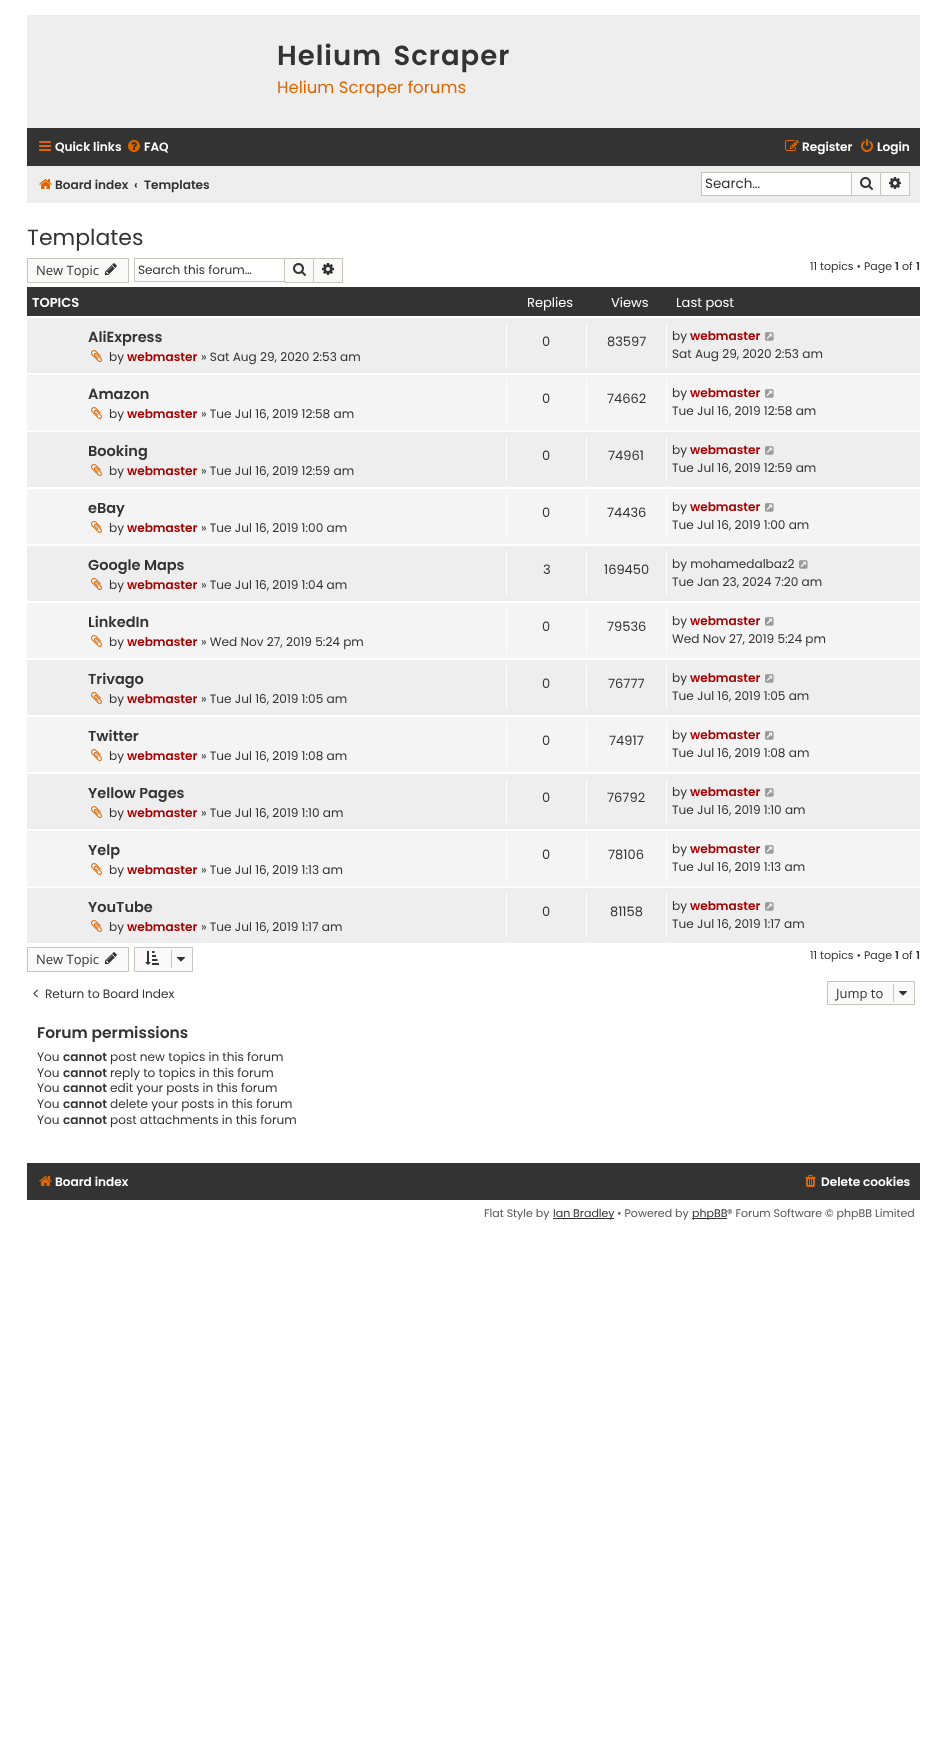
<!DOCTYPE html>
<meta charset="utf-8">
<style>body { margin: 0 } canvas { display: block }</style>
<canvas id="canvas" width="947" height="1748"></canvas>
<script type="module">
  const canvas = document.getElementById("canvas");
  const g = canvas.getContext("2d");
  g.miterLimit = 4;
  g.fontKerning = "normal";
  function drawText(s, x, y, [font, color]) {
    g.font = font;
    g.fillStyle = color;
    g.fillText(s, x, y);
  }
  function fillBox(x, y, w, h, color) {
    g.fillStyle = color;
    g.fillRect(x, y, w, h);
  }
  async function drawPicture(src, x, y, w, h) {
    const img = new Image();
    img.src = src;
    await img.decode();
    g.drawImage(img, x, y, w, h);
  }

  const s1 = ["600 27.5px Poppins", "#333333"];
  const s2 = ["16.5px Poppins", "#DD6600"];
  const s3 = ["600 12.1px Poppins", "#FFFFFF"];
  const s4 = ["600 12.1px Poppins", "#333333"];
  const s5 = ["13.5px Poppins", "#333333"];
  const s6 = ["22px Poppins", "#333333"];
  const s7 = ["13px Open Sans", "#333333"];
  const s8 = ["12.1px Poppins", "#333333"];
  const s9 = ["11px Poppins", "#333333"];
  const s10 = ["600 11px Poppins", "#333333"];
  const s11 = ["600 13px Poppins", "#FFFFFF"];
  const s12 = ["13px Poppins", "#FFFFFF"];
  const s13 = ["600 14.5px Poppins", "#333333"];
  const s14 = ["600 12.1px Poppins", "#AA0000"];
  const s15 = ["13px Poppins", "#333333"];
  const s16 = ["600 15.5px Poppins", "#333333"];
  const s17 = ["11px Poppins", "#555555"];

  fillBox(0, 0, 947, 1748, "#FFFFFF");
  fillBox(27, 15, 893, 113, "#EEEEEE");
  g.letterSpacing = "1px";
  g.wordSpacing = "4px";
  drawText("Helium Scraper", 277, 65, s1);
  g.letterSpacing = "0px";
  g.wordSpacing = "0px";
  drawText("Helium Scraper forums", 277, 93, s2);
  fillBox(27, 128, 893, 38, "#333333");
  await drawPicture("pic1.png", 39, 141, 12, 10);
  drawText("Quick links", 55, 151, s3);
  await drawPicture("pic2.png", 128, 140, 12, 12);
  drawText("FAQ", 144, 151, s3);
  await drawPicture("pic3.png", 785, 140, 14, 11);
  drawText("Register", 802, 151, s3);
  await drawPicture("pic4.png", 861, 139, 12, 13);
  drawText("Login", 877, 151, s3);
  fillBox(27, 166, 893, 37, "#EEEEEE");
  await drawPicture("pic5.png", 39, 179, 13, 10);
  drawText("Board index", 55, 189, s4);
  drawText("‹", 134, 189, s4);
  drawText("Templates", 144, 189, s4);
  fillBox(702, 173, 149, 22, "#FFFFFF");
  fillBox(701, 172, 150, 1, "#C7C3BF");
  fillBox(701, 195, 150, 1, "#C7C3BF");
  fillBox(701, 172, 1, 24, "#C7C3BF");
  drawText("Search…", 705, 188, s5);
  g.fillStyle = "#FAFAFA";
  g.beginPath();
  g.rect(851.5, 172.5, 29, 23);
  g.fill();
  g.strokeStyle = "#C7C3BF";
  g.stroke();
  await drawPicture("pic6.png", 860, 177, 13, 13);
  fillBox(881, 173, 28, 22, "#FAFAFA");
  fillBox(881, 172, 29, 1, "#C7C3BF");
  fillBox(909, 172, 1, 24, "#C7C3BF");
  fillBox(881, 195, 29, 1, "#C7C3BF");
  await drawPicture("pic7.png", 889, 177, 12, 12);
  drawText("Templates", 27, 245, s6);
  g.fillStyle = "#FAFAFA";
  g.beginPath();
  g.rect(27.5, 258.5, 101, 24);
  g.fill();
  g.stroke();
  drawText("New Topic", 36, 275, s7);
  await drawPicture("pic8.png", 105, 263, 12, 12);
  fillBox(134, 258, 150, 1, "#C7C3BF");
  fillBox(134, 281, 150, 1, "#C7C3BF");
  fillBox(134, 258, 1, 24, "#C7C3BF");
  drawText("Search this forum…", 138, 274, s8);
  g.fillStyle = "#FAFAFA";
  g.beginPath();
  g.rect(284.5, 258.5, 29, 24);
  g.fill();
  g.stroke();
  await drawPicture("pic6.png", 293, 263, 13, 13);
  fillBox(314, 259, 28, 23, "#FAFAFA");
  fillBox(314, 258, 29, 1, "#C7C3BF");
  fillBox(342, 258, 1, 25, "#C7C3BF");
  fillBox(314, 282, 29, 1, "#C7C3BF");
  await drawPicture("pic7.png", 322, 263, 12, 12);
  drawText("11 topics • Page", 810, 270, s9);
  drawText("1", 895, 270, s10);
  drawText("of", 902, 270, s9);
  drawText("1", 916, 270, s10);
  fillBox(27, 287, 893, 29, "#333333");
  drawText("TOPICS", 32, 307, s11);
  drawText("Replies", 527, 307, s12);
  drawText("Views", 611, 307, s12);
  drawText("Last post", 676, 307, s12);
  fillBox(27, 318, 893, 55, "#EEEEEE");
  drawText("AliExpress", 88, 342, s13);
  await drawPicture("pic9.png", 91, 350, 11, 12);
  drawText("by", 109, 361, s8);
  drawText("webmaster", 127, 361, s14);
  drawText("» Sat Aug 29, 2020 2:53 am", 201, 361, s8);
  fillBox(506, 323, 1, 44, "#FFFFFF");
  drawText("0", 542, 346, s15);
  fillBox(586, 323, 1, 44, "#FFFFFF");
  drawText("83597", 607, 346, s15);
  fillBox(666, 323, 1, 44, "#FFFFFF");
  drawText("by", 672, 340, s8);
  drawText("webmaster", 690, 340, s14);
  await drawPicture("pic10.png", 765, 332, 9, 9);
  drawText("Sat Aug 29, 2020 2:53 am", 672, 358, s8);
  fillBox(27, 375, 893, 55, "#F4F4F4");
  drawText("Amazon", 88, 399, s13);
  await drawPicture("pic11.png", 91, 407, 11, 12);
  drawText("by", 109, 418, s8);
  drawText("webmaster", 127, 418, s14);
  drawText("» Tue Jul 16, 2019 12:58 am", 201, 418, s8);
  fillBox(506, 380, 1, 44, "#FFFFFF");
  drawText("0", 542, 403, s15);
  fillBox(586, 380, 1, 44, "#FFFFFF");
  drawText("74662", 607, 403, s15);
  fillBox(666, 380, 1, 44, "#FFFFFF");
  drawText("by", 672, 397, s8);
  drawText("webmaster", 690, 397, s14);
  await drawPicture("pic12.png", 765, 389, 9, 9);
  drawText("Tue Jul 16, 2019 12:58 am", 672, 415, s8);
  fillBox(27, 432, 893, 55, "#EEEEEE");
  drawText("Booking", 88, 456, s13);
  await drawPicture("pic9.png", 91, 464, 11, 12);
  drawText("by", 109, 475, s8);
  drawText("webmaster", 127, 475, s14);
  drawText("» Tue Jul 16, 2019 12:59 am", 201, 475, s8);
  fillBox(506, 437, 1, 44, "#FFFFFF");
  drawText("0", 542, 460, s15);
  fillBox(586, 437, 1, 44, "#FFFFFF");
  drawText("74961", 608, 460, s15);
  fillBox(666, 437, 1, 44, "#FFFFFF");
  drawText("by", 672, 454, s8);
  drawText("webmaster", 690, 454, s14);
  await drawPicture("pic10.png", 765, 446, 9, 9);
  drawText("Tue Jul 16, 2019 12:59 am", 672, 472, s8);
  fillBox(27, 489, 893, 55, "#F4F4F4");
  drawText("eBay", 88, 513, s13);
  await drawPicture("pic11.png", 91, 521, 11, 12);
  drawText("by", 109, 532, s8);
  drawText("webmaster", 127, 532, s14);
  drawText("» Tue Jul 16, 2019 1:00 am", 201, 532, s8);
  fillBox(506, 494, 1, 44, "#FFFFFF");
  drawText("0", 542, 517, s15);
  fillBox(586, 494, 1, 44, "#FFFFFF");
  drawText("74436", 607, 517, s15);
  fillBox(666, 494, 1, 44, "#FFFFFF");
  drawText("by", 672, 511, s8);
  drawText("webmaster", 690, 511, s14);
  await drawPicture("pic12.png", 765, 503, 9, 9);
  drawText("Tue Jul 16, 2019 1:00 am", 672, 529, s8);
  fillBox(27, 546, 893, 55, "#EEEEEE");
  drawText("Google Maps", 88, 570, s13);
  await drawPicture("pic9.png", 91, 578, 11, 12);
  drawText("by", 109, 589, s8);
  drawText("webmaster", 127, 589, s14);
  drawText("» Tue Jul 16, 2019 1:04 am", 201, 589, s8);
  fillBox(506, 551, 1, 44, "#FFFFFF");
  drawText("3", 543, 574, s15);
  fillBox(586, 551, 1, 44, "#FFFFFF");
  drawText("169450", 604, 574, s15);
  fillBox(666, 551, 1, 44, "#FFFFFF");
  drawText("by mohamedalbaz2", 672, 568, s8);
  await drawPicture("pic10.png", 799, 560, 9, 9);
  drawText("Tue Jan 23, 2024 7:20 am", 672, 586, s8);
  fillBox(27, 603, 893, 55, "#F4F4F4");
  drawText("LinkedIn", 88, 627, s13);
  await drawPicture("pic11.png", 91, 635, 11, 12);
  drawText("by", 109, 646, s8);
  drawText("webmaster", 127, 646, s14);
  drawText("» Wed Nov 27, 2019 5:24 pm", 201, 646, s8);
  fillBox(506, 608, 1, 44, "#FFFFFF");
  drawText("0", 542, 631, s15);
  fillBox(586, 608, 1, 44, "#FFFFFF");
  drawText("79536", 607, 631, s15);
  fillBox(666, 608, 1, 44, "#FFFFFF");
  drawText("by", 672, 625, s8);
  drawText("webmaster", 690, 625, s14);
  await drawPicture("pic12.png", 765, 617, 9, 9);
  drawText("Wed Nov 27, 2019 5:24 pm", 672, 643, s8);
  fillBox(27, 660, 893, 55, "#EEEEEE");
  drawText("Trivago", 88, 684, s13);
  await drawPicture("pic9.png", 91, 692, 11, 12);
  drawText("by", 109, 703, s8);
  drawText("webmaster", 127, 703, s14);
  drawText("» Tue Jul 16, 2019 1:05 am", 201, 703, s8);
  fillBox(506, 665, 1, 44, "#FFFFFF");
  drawText("0", 542, 688, s15);
  fillBox(586, 665, 1, 44, "#FFFFFF");
  drawText("76777", 608, 688, s15);
  fillBox(666, 665, 1, 44, "#FFFFFF");
  drawText("by", 672, 682, s8);
  drawText("webmaster", 690, 682, s14);
  await drawPicture("pic10.png", 765, 674, 9, 9);
  drawText("Tue Jul 16, 2019 1:05 am", 672, 700, s8);
  fillBox(27, 717, 893, 55, "#F4F4F4");
  drawText("Twitter", 88, 741, s13);
  await drawPicture("pic11.png", 91, 749, 11, 12);
  drawText("by", 109, 760, s8);
  drawText("webmaster", 127, 760, s14);
  drawText("» Tue Jul 16, 2019 1:08 am", 201, 760, s8);
  fillBox(506, 722, 1, 44, "#FFFFFF");
  drawText("0", 542, 745, s15);
  fillBox(586, 722, 1, 44, "#FFFFFF");
  drawText("74917", 609, 745, s15);
  fillBox(666, 722, 1, 44, "#FFFFFF");
  drawText("by", 672, 739, s8);
  drawText("webmaster", 690, 739, s14);
  await drawPicture("pic12.png", 765, 731, 9, 9);
  drawText("Tue Jul 16, 2019 1:08 am", 672, 757, s8);
  fillBox(27, 774, 893, 55, "#EEEEEE");
  drawText("Yellow Pages", 88, 798, s13);
  await drawPicture("pic9.png", 91, 806, 11, 12);
  drawText("by", 109, 817, s8);
  drawText("webmaster", 127, 817, s14);
  drawText("» Tue Jul 16, 2019 1:10 am", 201, 817, s8);
  fillBox(506, 779, 1, 44, "#FFFFFF");
  drawText("0", 542, 802, s15);
  fillBox(586, 779, 1, 44, "#FFFFFF");
  drawText("76792", 607, 802, s15);
  fillBox(666, 779, 1, 44, "#FFFFFF");
  drawText("by", 672, 796, s8);
  drawText("webmaster", 690, 796, s14);
  await drawPicture("pic10.png", 765, 788, 9, 9);
  drawText("Tue Jul 16, 2019 1:10 am", 672, 814, s8);
  fillBox(27, 831, 893, 55, "#F4F4F4");
  drawText("Yelp", 88, 855, s13);
  await drawPicture("pic11.png", 91, 863, 11, 12);
  drawText("by", 109, 874, s8);
  drawText("webmaster", 127, 874, s14);
  drawText("» Tue Jul 16, 2019 1:13 am", 201, 874, s8);
  fillBox(506, 836, 1, 44, "#FFFFFF");
  drawText("0", 542, 859, s15);
  fillBox(586, 836, 1, 44, "#FFFFFF");
  drawText("78106", 608, 859, s15);
  fillBox(666, 836, 1, 44, "#FFFFFF");
  drawText("by", 672, 853, s8);
  drawText("webmaster", 690, 853, s14);
  await drawPicture("pic12.png", 765, 845, 9, 9);
  drawText("Tue Jul 16, 2019 1:13 am", 672, 871, s8);
  fillBox(27, 888, 893, 55, "#EEEEEE");
  drawText("YouTube", 88, 912, s13);
  await drawPicture("pic9.png", 91, 920, 11, 12);
  drawText("by", 109, 931, s8);
  drawText("webmaster", 127, 931, s14);
  drawText("» Tue Jul 16, 2019 1:17 am", 201, 931, s8);
  fillBox(506, 893, 1, 44, "#FFFFFF");
  drawText("0", 542, 916, s15);
  fillBox(586, 893, 1, 44, "#FFFFFF");
  drawText("81158", 610, 916, s15);
  fillBox(666, 893, 1, 44, "#FFFFFF");
  drawText("by", 672, 910, s8);
  drawText("webmaster", 690, 910, s14);
  await drawPicture("pic10.png", 765, 902, 9, 9);
  drawText("Tue Jul 16, 2019 1:17 am", 672, 928, s8);
  g.fillStyle = "#FAFAFA";
  g.beginPath();
  g.rect(27.5, 947.5, 101, 24);
  g.fill();
  g.stroke();
  drawText("New Topic", 36, 964, s7);
  await drawPicture("pic8.png", 105, 952, 12, 12);
  g.fillStyle = "#FAFAFA";
  g.beginPath();
  g.rect(134.5, 947.5, 58, 24);
  g.fill();
  g.stroke();
  await drawPicture("pic13.png", 145, 951, 14, 14);
  fillBox(171, 950, 1, 18, "#C7C3BF");
  await drawPicture("pic14.png", 177, 957, 8, 5);
  drawText("11 topics • Page", 810, 959, s9);
  drawText("1", 895, 959, s10);
  drawText("of", 902, 959, s9);
  drawText("1", 916, 959, s10);
  await drawPicture("pic15.png", 33, 989, 5, 9);
  drawText("Return to Board Index", 45, 998, s8);
  g.fillStyle = "#FAFAFA";
  g.beginPath();
  g.rect(827.5, 981.5, 87, 23);
  g.fill();
  g.stroke();
  drawText("Jump to", 836, 998, s7);
  fillBox(893, 984, 1, 18, "#C7C3BF");
  await drawPicture("pic14.png", 899, 991, 8, 5);
  drawText("Forum permissions", 37, 1038, s16);
  drawText("You", 37, 1061, s8);
  drawText("cannot", 63, 1061, s4);
  drawText("post new topics in this forum", 110, 1061, s8);
  drawText("You", 37, 1077, s8);
  drawText("cannot", 63, 1077, s4);
  drawText("reply to topics in this forum", 110, 1077, s8);
  drawText("You", 37, 1092, s8);
  drawText("cannot", 63, 1092, s4);
  drawText("edit your posts in this forum", 110, 1092, s8);
  drawText("You", 37, 1108, s8);
  drawText("cannot", 63, 1108, s4);
  drawText("delete your posts in this forum", 110, 1108, s8);
  drawText("You", 37, 1124, s8);
  drawText("cannot", 63, 1124, s4);
  drawText("post attachments in this forum", 110, 1124, s8);
  fillBox(27, 1163, 893, 37, "#333333");
  await drawPicture("pic16.png", 39, 1176, 13, 10);
  drawText("Board index", 55, 1186, s3);
  await drawPicture("pic17.png", 805, 1175, 11, 12);
  drawText("Delete cookies", 821, 1186, s3);
  drawText("Flat Style by", 484, 1217, s17);
  fillBox(553, 1218, 61, 1, "#333333");
  drawText("Ian Bradley", 553, 1217, s9);
  drawText("• Powered by", 617, 1217, s17);
  fillBox(692, 1218, 35, 1, "#333333");
  drawText("phpBB", 692, 1217, s9);
  drawText("® Forum Software © phpBB Limited", 727, 1217, s17);
</script>
